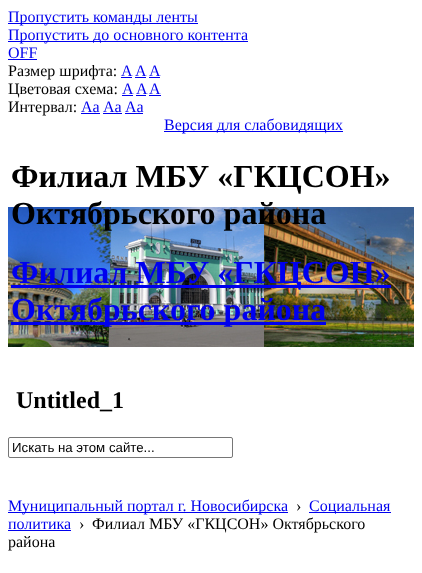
<!DOCTYPE html>
<meta charset="utf-8">
<style>body { margin: 0 } canvas { display: block }</style>
<canvas id="canvas" width="422" height="573"></canvas>
<script type="module">
  const canvas = document.getElementById("canvas");
  const g = canvas.getContext("2d");
  g.miterLimit = 4;
  g.fontKerning = "normal";
  function drawText(s, x, y, [font, color]) {
    g.font = font;
    g.fillStyle = color;
    g.fillText(s, x, y);
  }
  function fillBox(x, y, w, h, color) {
    g.fillStyle = color;
    g.fillRect(x, y, w, h);
  }
  async function drawPicture(src, x, y, w, h) {
    const img = new Image();
    img.src = src;
    await img.decode();
    g.drawImage(img, x, y, w, h);
  }

  const s1 = ["16px Liberation Serif", "#0000EE"];
  const s2 = ["16px Liberation Serif", "#000000"];
  const s3 = ["bold 32px Liberation Serif", "#000000"];
  const s4 = ["bold 32px Liberation Serif", "#0000EE"];
  const s5 = ["bold 24px Liberation Serif", "#000000"];
  const s6 = ["13.25px Liberation Sans", "#000000"];

  fillBox(0, 0, 422, 573, "#FFFFFF");
  fillBox(8, 23, 190, 1, "#0000EE");
  drawText("Пропустить команды ленты", 8, 22, s1);
  fillBox(8, 41, 240, 1, "#0000EE");
  drawText("Пропустить до основного контента", 8, 40, s1);
  drawText("OFF", 8, 58, s1);
  fillBox(8, 59, 29, 1, "#0000EE");
  drawText("Размер шрифта:", 8, 76, s2);
  drawText("A", 121, 76, s1);
  fillBox(121, 77, 11, 1, "#0000EE");
  drawText("A", 135, 76, s1);
  fillBox(135, 77, 11, 1, "#0000EE");
  drawText("A", 149, 76, s1);
  fillBox(149, 77, 11, 1, "#0000EE");
  drawText("Цветовая схема:", 8, 94, s2);
  drawText("A", 122, 94, s1);
  fillBox(122, 95, 11, 1, "#0000EE");
  drawText("A", 136, 94, s1);
  fillBox(136, 95, 10, 1, "#0000EE");
  drawText("A", 149, 94, s1);
  fillBox(149, 95, 12, 1, "#0000EE");
  drawText("Интервал:", 8, 112, s2);
  drawText("Aa", 81, 112, s1);
  fillBox(81, 113, 19, 1, "#0000EE");
  drawText("Aa", 103, 112, s1);
  fillBox(103, 113, 19, 1, "#0000EE");
  drawText("Aa", 125, 112, s1);
  fillBox(125, 113, 18, 1, "#0000EE");
  fillBox(164, 131, 179, 1, "#0000EE");
  drawText("Версия для слабовидящих", 164, 130, s1);
  await drawPicture("pic1.png", 8, 207, 406, 140);
  drawText("Филиал МБУ «ГКЦСОН»", 11, 187, s3);
  drawText("Октябрьского района", 11, 224, s3);
  fillBox(11, 285, 380, 3, "#0000EE");
  drawText("Филиал МБУ «ГКЦСОН»", 11, 283, s4);
  fillBox(11, 322, 315, 3, "#0000EE");
  drawText("Октябрьского района", 11, 320, s4);
  drawText("Untitled_1", 16, 408, s5);
  g.beginPath();
  g.roundRect(8.5, 437.5, 224, 20, 1.5);
  g.strokeStyle = "#767676";
  g.stroke();
  drawText("Искать на этом сайте...", 12, 452, s6);
  fillBox(8, 512, 280, 1, "#0000EE");
  drawText("Муниципальный портал г. Новосибирска", 8, 511, s1);
  drawText("›", 296, 511, s2);
  fillBox(309, 512, 82, 1, "#0000EE");
  drawText("Социальная", 309, 511, s1);
  drawText("политика", 8, 529, s1);
  fillBox(8, 530, 63, 1, "#0000EE");
  drawText("›", 79, 529, s2);
  drawText("Филиал МБУ «ГКЦСОН» Октябрьского", 92, 529, s2);
  drawText("района", 8, 547, s2);
</script>
